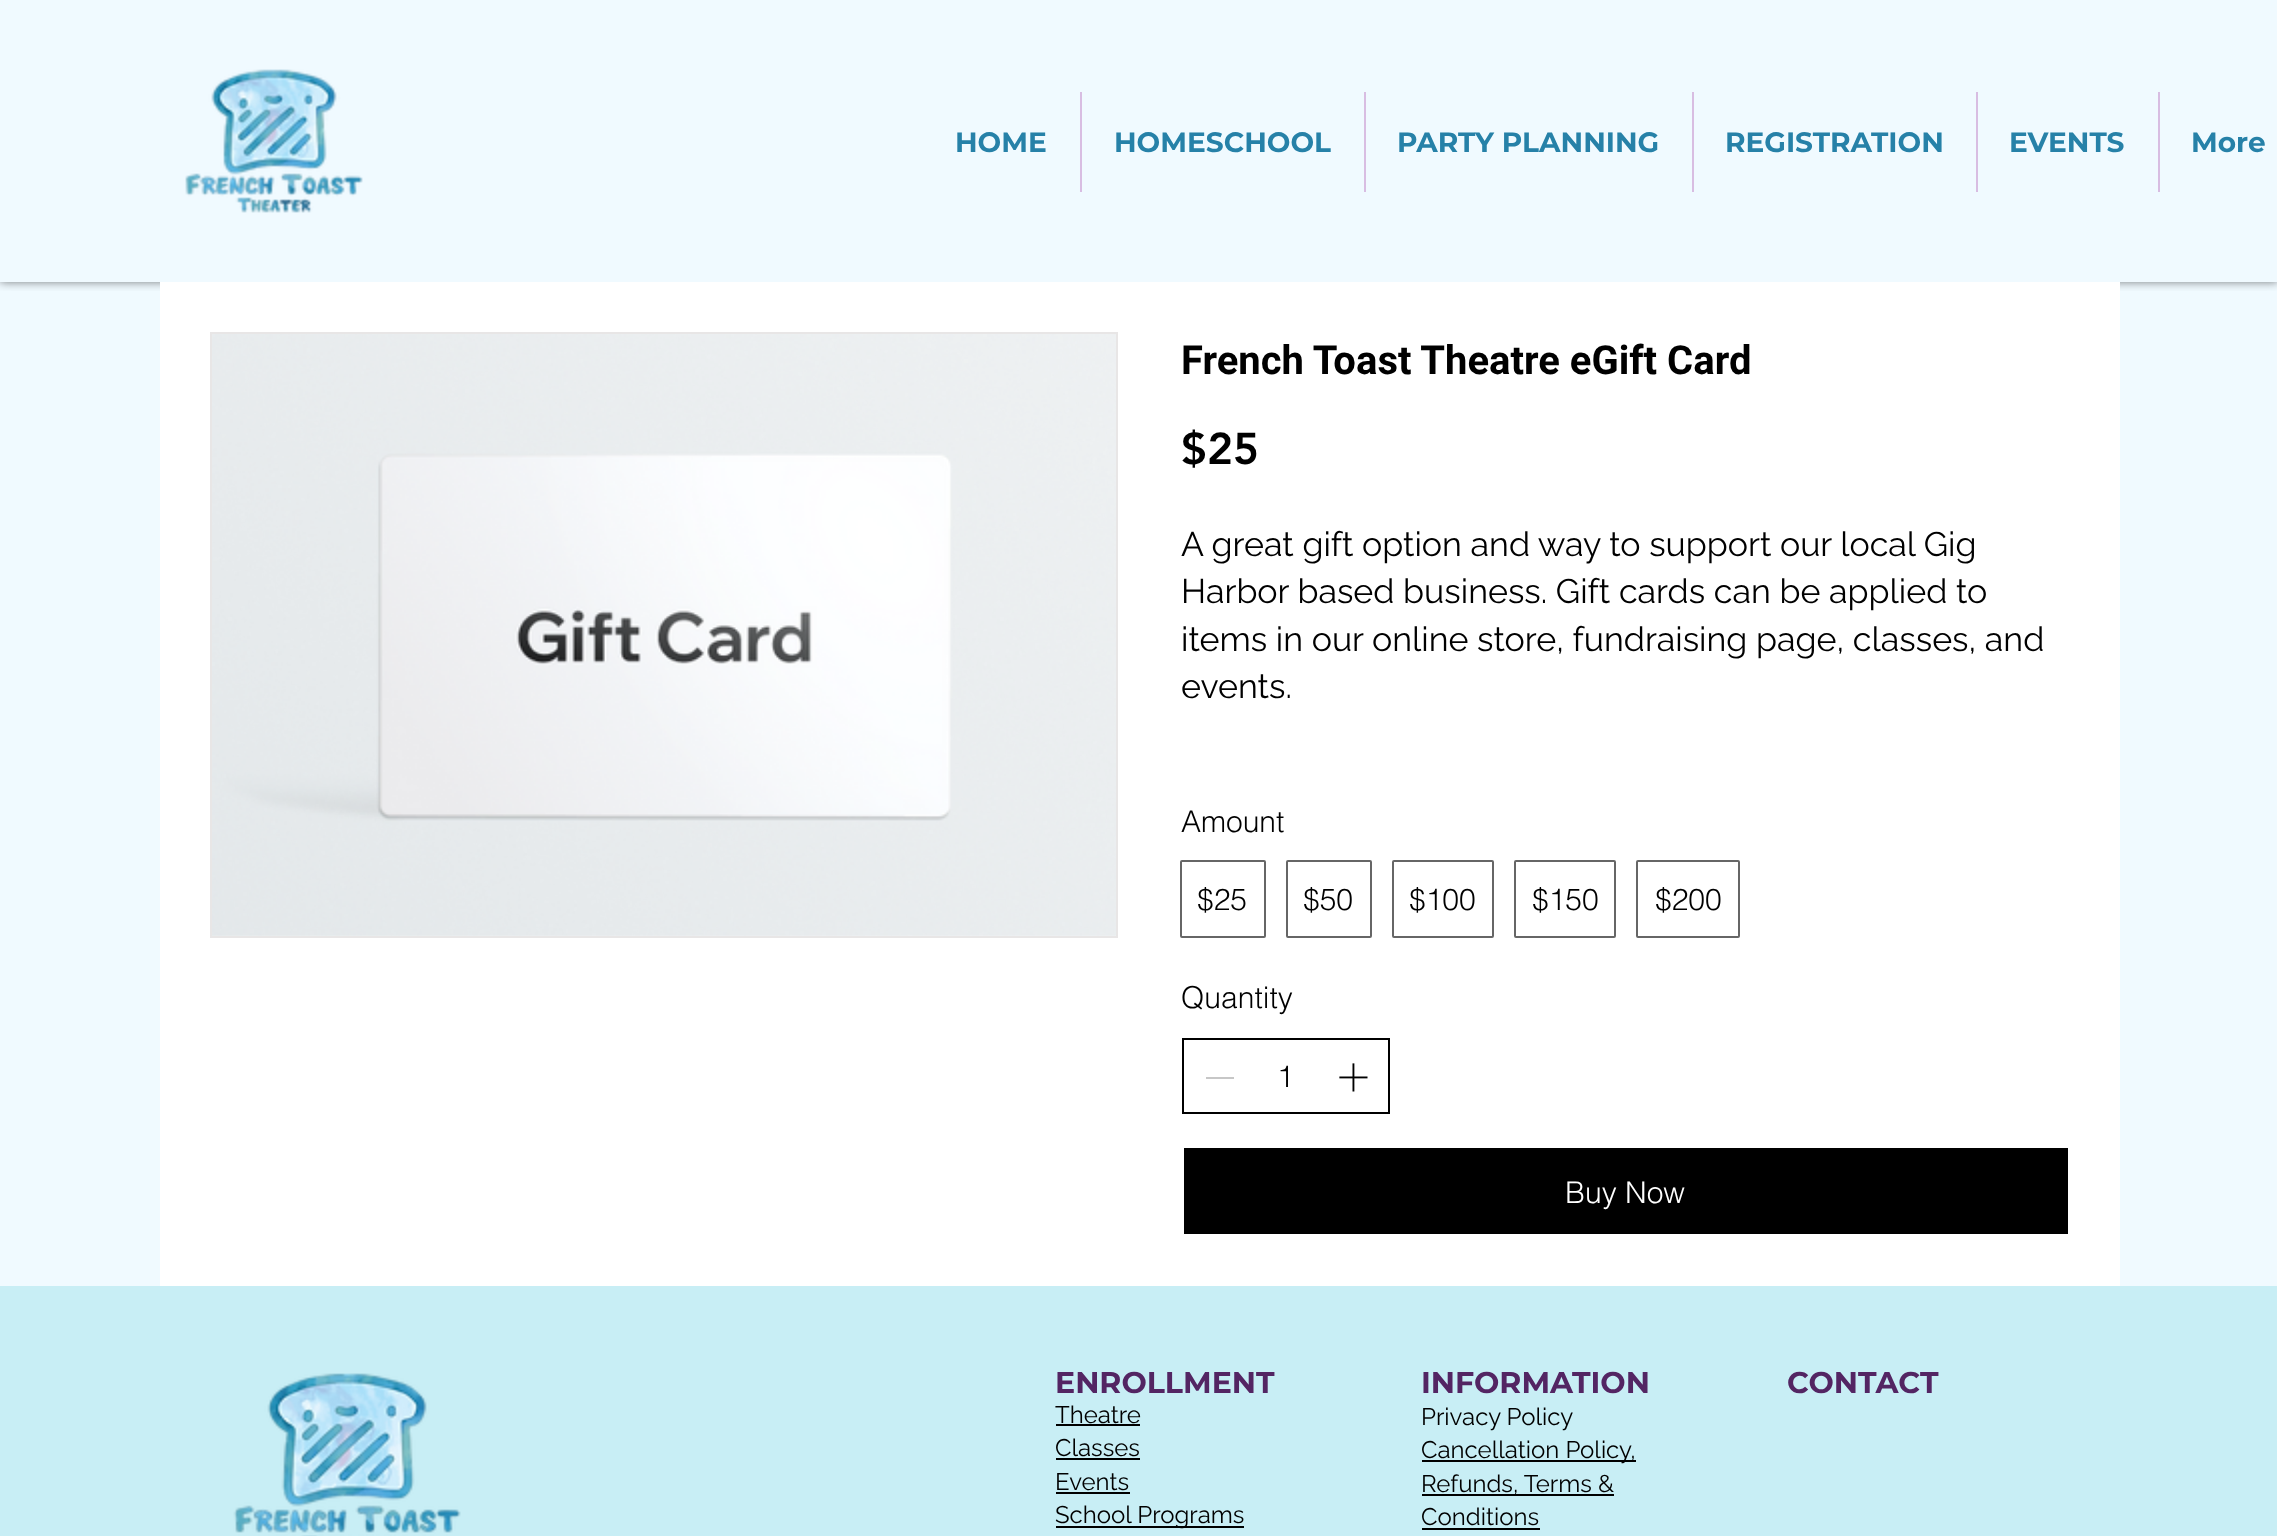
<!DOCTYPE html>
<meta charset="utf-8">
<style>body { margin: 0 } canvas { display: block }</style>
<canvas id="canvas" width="2277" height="1536"></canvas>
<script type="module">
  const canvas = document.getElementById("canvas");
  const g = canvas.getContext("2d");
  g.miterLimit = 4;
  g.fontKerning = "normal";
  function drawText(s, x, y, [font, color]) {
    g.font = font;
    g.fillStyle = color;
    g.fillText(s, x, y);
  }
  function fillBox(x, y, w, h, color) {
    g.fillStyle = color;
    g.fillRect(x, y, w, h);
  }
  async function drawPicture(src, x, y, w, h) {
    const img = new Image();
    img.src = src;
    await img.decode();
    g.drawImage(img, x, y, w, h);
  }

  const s1 = ["bold 28px Montserrat", "#2681A8"];
  const s2 = ["bold 40px Roboto", "#000000"];
  const s3 = ["900 44px 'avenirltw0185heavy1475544'", "#000000"];
  const s4 = ["34px Raleway", "#000000"];
  const s5 = ["300 30px helvetica", "#000000"];
  const s6 = ["300 30px helvetica", "#FFFFFF"];
  const s7 = ["bold 30px Montserrat", "#532563"];
  const s8 = ["24px Raleway", "#000000"];

  fillBox(0, 0, 2277, 1536, "#F0FAFF");
  g.save();
  g.beginPath();
  g.rect(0, 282, 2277, 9);
  g.clip();
  g.fillStyle = "rgba(0, 0, 0, 0.5)";
  g.filter = "blur(5px)";
  g.beginPath();
  g.rect(0, 0, 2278, 282);
  g.fill();
  g.filter = "none";
  g.restore();
  await drawPicture("pic1.png", 185, 69, 178, 144);
  drawText("HOME", 955, 152, s1);
  fillBox(1080, 92, 2, 100, "#D8BDE2");
  drawText("HOMESCHOOL", 1114, 152, s1);
  fillBox(1364, 92, 2, 100, "#D8BDE2");
  drawText("PARTY PLANNING", 1397, 152, s1);
  fillBox(1692, 92, 2, 100, "#D8BDE2");
  drawText("REGISTRATION", 1725, 152, s1);
  fillBox(1976, 92, 2, 100, "#D8BDE2");
  drawText("EVENTS", 2009, 152, s1);
  fillBox(2158, 92, 2, 100, "#D8BDE2");
  drawText("More", 2191, 152, s1);
  fillBox(160, 282, 1960, 1004, "#FFFFFF");
  g.strokeStyle = "#E8E6E6";
  g.lineWidth = 2;
  g.strokeRect(211, 333, 906, 604);
  await drawPicture("pic2.png", 212, 334, 904, 602);
  drawText("French Toast Theatre eGift Card", 1181, 374, s2);
  drawText("$25", 1181, 464, s3);
  drawText("A great gift option and way to support our local Gig", 1181, 556, s4);
  drawText("Harbor based business. Gift cards can be applied to", 1181, 603, s4);
  drawText("items in our online store, fundraising page, classes, and", 1181, 651, s4);
  drawText("events.", 1181, 698, s4);
  drawText("Amount", 1181, 832, s5);
  g.beginPath();
  g.roundRect(1181, 861, 84, 76, 1);
  g.strokeStyle = "#666666";
  g.stroke();
  drawText("$25", 1197, 910, s5);
  g.beginPath();
  g.roundRect(1287, 861, 84, 76, 1);
  g.stroke();
  drawText("$50", 1303, 910, s5);
  g.beginPath();
  g.roundRect(1393, 861, 100, 76, 1);
  g.stroke();
  drawText("$100", 1409, 910, s5);
  g.beginPath();
  g.roundRect(1515, 861, 100, 76, 1);
  g.stroke();
  drawText("$150", 1532, 910, s5);
  g.beginPath();
  g.roundRect(1637, 861, 102, 76, 1);
  g.stroke();
  drawText("$200", 1655, 910, s5);
  drawText("Quantity", 1181, 1008, s5);
  g.strokeStyle = "#000000";
  g.strokeRect(1183, 1039, 206, 74);
  fillBox(1206, 1077, 28, 2, "#C7C7C7");
  drawText("1", 1277, 1087, s5);
  await drawPicture("pic3.png", 1339, 1063, 29, 29);
  g.beginPath();
  g.roundRect(1183, 1147, 886, 88, 1);
  g.fill();
  g.strokeStyle = "#FFFFFF";
  g.stroke();
  drawText("Buy Now", 1565, 1203, s6);
  fillBox(0, 1286, 2277, 250, "#C8EEF5");
  await drawPicture("pic4.png", 233, 1373, 228, 163);
  drawText("ENROLLMENT", 1055, 1393, s7);
  drawText("INFORMATION", 1421, 1393, s7);
  drawText("CONTACT", 1787, 1393, s7);
  drawText("Theatre", 1055, 1423, s8);
  fillBox(1056, 1424, 84, 2, "#000000");
  drawText("Privacy Policy", 1421, 1425, s8);
  drawText("Classes", 1055, 1456, s8);
  fillBox(1056, 1458, 84, 2, "#000000");
  fillBox(1422, 1460, 214, 2, "#000000");
  drawText("Cancellation Policy,", 1421, 1458, s8);
  drawText("Refunds, Terms &", 1421, 1492, s8);
  fillBox(1422, 1494, 192, 2, "#000000");
  drawText("Conditions", 1421, 1525, s8);
  fillBox(1422, 1528, 118, 2, "#000000");
  drawText("Events", 1055, 1490, s8);
  fillBox(1056, 1492, 74, 2, "#000000");
  fillBox(1056, 1526, 188, 2, "#000000");
  drawText("School Programs", 1055, 1523, s8);
</script>
